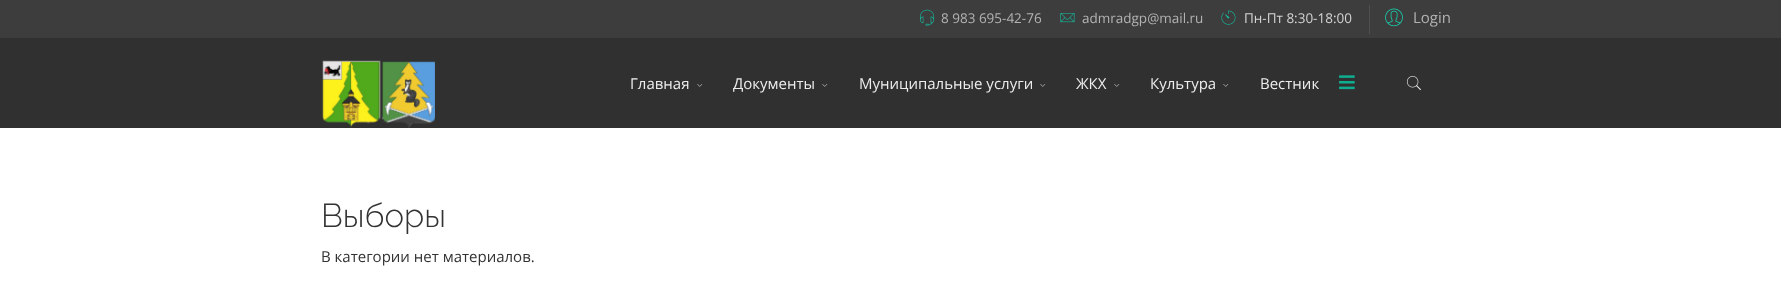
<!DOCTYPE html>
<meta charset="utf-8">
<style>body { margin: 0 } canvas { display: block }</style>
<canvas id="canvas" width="1781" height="302"></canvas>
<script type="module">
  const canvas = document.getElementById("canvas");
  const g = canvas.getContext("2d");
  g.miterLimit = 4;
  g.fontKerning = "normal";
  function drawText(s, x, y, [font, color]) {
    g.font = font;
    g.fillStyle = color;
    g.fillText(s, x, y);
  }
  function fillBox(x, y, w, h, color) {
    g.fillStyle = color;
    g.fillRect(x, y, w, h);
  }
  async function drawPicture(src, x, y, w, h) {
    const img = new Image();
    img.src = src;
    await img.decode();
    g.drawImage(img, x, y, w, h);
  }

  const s1 = ["13.5px Open Sans", "#B3B3B3"];
  const s2 = ["13.5px Open Sans", "#D4D4D4"];
  const s3 = ["15px Open Sans", "#B3B3B3"];
  const s4 = ["15px Open Sans", "#EDEDED"];
  const s5 = ["300 33px Raleway", "#333333"];
  const s6 = ["15px Open Sans", "#333333"];

  fillBox(0, 0, 1781, 302, "#FFFFFF");
  fillBox(0, 0, 1781, 38, "#3D3D3D");
  await drawPicture("pic1.png", 920, 9, 15, 17);
  drawText("8 983 695-42-76", 941, 23, s1);
  await drawPicture("pic2.png", 1060, 13, 15, 10);
  drawText("admradgp@mail.ru", 1082, 23, s1);
  await drawPicture("pic3.png", 1221, 10, 15, 15);
  drawText("Пн-Пт 8:30-18:00", 1244, 23, s2);
  fillBox(1369, 5, 1, 29, "#4F4F4F");
  await drawPicture("pic4.png", 1385, 8, 18, 19);
  drawText("Login", 1413, 23, s3);
  fillBox(0, 38, 1781, 90, "#303030");
  await drawPicture("pic5.png", 322, 60, 113, 68);
  drawText("Главная", 630, 89, s4);
  await drawPicture("pic6.png", 697, 84, 6, 3);
  drawText("Документы", 733, 89, s4);
  await drawPicture("pic6.png", 822, 84, 6, 3);
  drawText("Муниципальные услуги", 859, 89, s4);
  await drawPicture("pic6.png", 1040, 84, 6, 3);
  drawText("ЖКХ", 1076, 89, s4);
  await drawPicture("pic6.png", 1114, 84, 6, 3);
  drawText("Культура", 1150, 89, s4);
  await drawPicture("pic6.png", 1223, 84, 6, 3);
  drawText("Вестник", 1260, 89, s4);
  await drawPicture("pic7.png", 1339, 75, 16, 15);
  await drawPicture("pic8.png", 1406, 76, 15, 15);
  drawText("Выборы", 321, 227, s5);
  drawText("В категории нет материалов.", 321, 262, s6);
</script>
